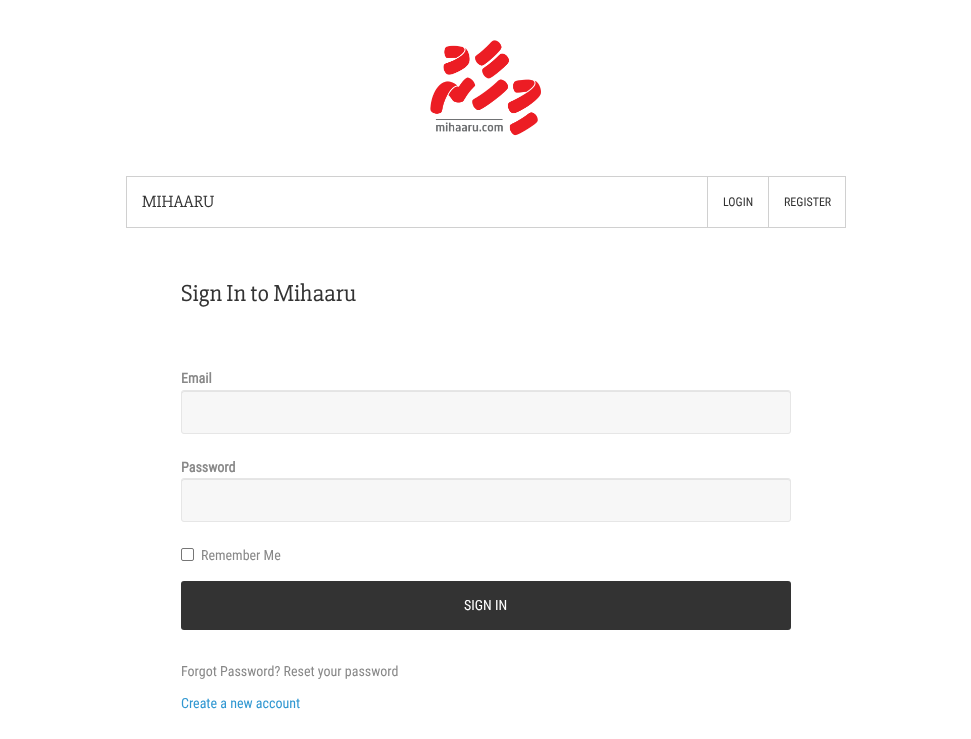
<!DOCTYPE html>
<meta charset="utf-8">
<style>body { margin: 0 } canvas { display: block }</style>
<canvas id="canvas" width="971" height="739"></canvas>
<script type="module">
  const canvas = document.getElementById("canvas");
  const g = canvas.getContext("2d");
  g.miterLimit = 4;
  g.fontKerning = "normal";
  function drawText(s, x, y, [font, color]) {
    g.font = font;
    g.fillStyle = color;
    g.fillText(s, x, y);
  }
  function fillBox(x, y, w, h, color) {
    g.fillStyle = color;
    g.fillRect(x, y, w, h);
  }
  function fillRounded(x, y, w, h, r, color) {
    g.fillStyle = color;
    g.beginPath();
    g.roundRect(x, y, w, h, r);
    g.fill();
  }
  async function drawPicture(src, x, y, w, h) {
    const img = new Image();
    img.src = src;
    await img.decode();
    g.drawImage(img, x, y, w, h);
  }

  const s1 = ["17px 'Slabo 27px'", "#333333"];
  const s2 = ["12px Roboto Condensed", "#333333"];
  const s3 = ["24px 'Slabo 27px'", "#333333"];
  const s4 = ["bold 14px Roboto Condensed", "#888888"];
  const s5 = ["14px Roboto Condensed", "#888888"];
  const s6 = ["14px Roboto Condensed", "#FFFFFF"];
  const s7 = ["14px Roboto Condensed", "#3097D1"];

  fillBox(0, 0, 971, 739, "#FFFFFF");
  await drawPicture("pic1.png", 430, 40, 111, 96);
  g.strokeStyle = "#D0D0D0";
  g.strokeRect(126.5, 176.5, 719, 51);
  drawText("MIHAARU", 142, 207, s1);
  fillBox(707, 177, 1, 50, "#D0D0D0");
  drawText("LOGIN", 723, 206, s2);
  fillBox(768, 177, 1, 50, "#D0D0D0");
  drawText("REGISTER", 784, 206, s2);
  drawText("Sign In to Mihaaru", 181, 301, s3);
  drawText("Email", 181, 383, s4);
  fillRounded(181, 390, 610, 44, 3, "#F7F7F7");
  g.fillStyle = "#E4E4E4";
  g.beginPath();
  g.moveTo(184, 392);
  g.lineTo(788, 392);
  g.bezierCurveTo(789, 392, 790, 393, 790, 394);
  g.bezierCurveTo(790, 393, 790, 391, 788, 391);
  g.lineTo(184, 391);
  g.lineTo(182, 392);
  g.lineTo(182, 394);
  g.bezierCurveTo(182, 393, 183, 392, 184, 392);
  g.closePath();
  g.fill();
  g.beginPath();
  g.roundRect(181.5, 390.5, 609, 43, 2.5);
  g.strokeStyle = "#E6E6E6";
  g.stroke();
  drawText("Password", 181, 472, s4);
  fillRounded(181, 478, 610, 44, 3, "#F7F7F7");
  g.fillStyle = "#E4E4E4";
  g.beginPath();
  g.moveTo(184, 480);
  g.lineTo(788, 480);
  g.bezierCurveTo(789, 480, 790, 481, 790, 482);
  g.bezierCurveTo(790, 481, 790, 479, 788, 479);
  g.lineTo(184, 479);
  g.lineTo(182, 480);
  g.lineTo(182, 482);
  g.bezierCurveTo(182, 481, 183, 480, 184, 480);
  g.closePath();
  g.fill();
  g.beginPath();
  g.roundRect(181.5, 478.5, 609, 43, 2.5);
  g.stroke();
  g.beginPath();
  g.roundRect(181.5, 548.5, 12, 12, 1.5);
  g.strokeStyle = "#767676";
  g.stroke();
  drawText("Remember Me", 201, 560, s5);
  fillRounded(181, 581, 610, 49, 3, "#333333");
  drawText("SIGN IN", 464, 610, s6);
  drawText("Forgot Password? Reset your password", 181, 676, s5);
  drawText("Create a new account", 181, 708, s7);
</script>
